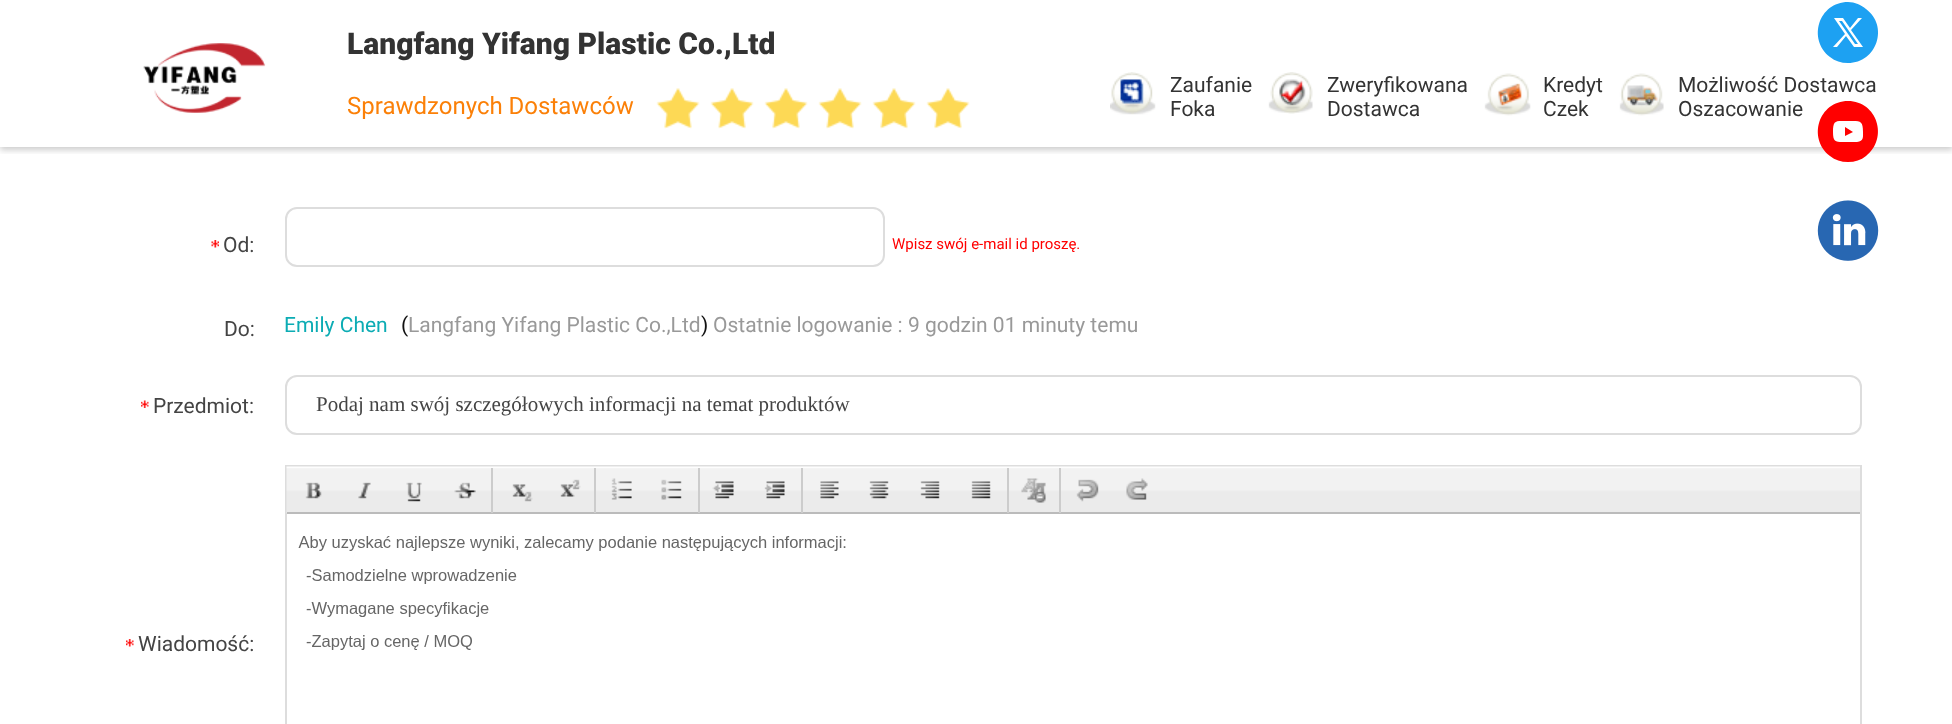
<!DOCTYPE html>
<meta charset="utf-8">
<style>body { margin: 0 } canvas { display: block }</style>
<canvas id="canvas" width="1952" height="724"></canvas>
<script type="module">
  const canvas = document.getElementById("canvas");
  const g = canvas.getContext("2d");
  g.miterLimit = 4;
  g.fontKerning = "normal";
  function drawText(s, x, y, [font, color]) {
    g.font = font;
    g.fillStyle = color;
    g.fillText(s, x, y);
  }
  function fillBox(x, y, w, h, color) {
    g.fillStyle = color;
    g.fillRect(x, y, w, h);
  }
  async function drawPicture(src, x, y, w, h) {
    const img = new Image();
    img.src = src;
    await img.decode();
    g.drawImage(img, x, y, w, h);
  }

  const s1 = ["900 30px Roboto", "#333333"];
  const s2 = ["24px Roboto", "#FB8008"];
  const s3 = ["21px Roboto", "#333333"];
  const s4 = ["21px Roboto", "#444444"];
  const s5 = ["15px Roboto", "#FF0000"];
  const s6 = ["21px Roboto", "#0CACB4"];
  const s7 = ["21px Roboto", "#111111"];
  const s8 = ["21px Roboto", "#999999"];
  const s9 = ["21px Liberation Serif", "#444444"];

  fillBox(0, 0, 1952, 724, "#FFFFFF");
  g.save();
  g.beginPath();
  g.rect(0, 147, 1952, 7);
  g.clip();
  g.fillStyle = "rgba(0, 0, 0, 0.2)";
  g.filter = "blur(3px)";
  g.beginPath();
  g.rect(0, 3, 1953, 147);
  g.fill();
  g.filter = "none";
  g.restore();
  g.fillStyle = "#1DA1F2";
  g.beginPath();
  g.moveTo(1848, 2);
  g.bezierCurveTo(1819, 2, 1807, 39, 1830, 57);
  g.bezierCurveTo(1835, 61, 1841, 63, 1848, 63);
  g.bezierCurveTo(1877, 63, 1889, 26, 1866, 9);
  g.bezierCurveTo(1861, 5, 1855, 2, 1848, 2);
  g.closePath();
  g.moveTo(1851, 30);
  g.lineTo(1863, 47);
  g.lineTo(1854, 47);
  g.lineTo(1846, 36);
  g.lineTo(1837, 47);
  g.lineTo(1833, 47);
  g.lineTo(1845, 34);
  g.lineTo(1834, 18);
  g.lineTo(1843, 18);
  g.lineTo(1850, 28);
  g.lineTo(1858, 18);
  g.lineTo(1862, 18);
  g.closePath();
  g.moveTo(1858, 44);
  g.lineTo(1842, 21);
  g.lineTo(1839, 21);
  g.lineTo(1855, 44);
  g.closePath();
  g.fill();
  g.fillStyle = "#FFFFFF";
  g.beginPath();
  g.arc(1846.5, 130.5, 22.5, 0, Math.PI * 2);
  g.fill();
  g.fillStyle = "#FF0000";
  g.beginPath();
  g.moveTo(1848, 101);
  g.bezierCurveTo(1877, 101, 1889, 138, 1866, 156);
  g.bezierCurveTo(1861, 160, 1855, 162, 1848, 162);
  g.bezierCurveTo(1841, 162, 1835, 160, 1830, 156);
  g.bezierCurveTo(1807, 138, 1819, 101, 1848, 101);
  g.closePath();
  g.moveTo(1849, 121);
  g.bezierCurveTo(1836, 121, 1833, 119, 1833, 132);
  g.bezierCurveTo(1833, 143, 1836, 142, 1847, 142);
  g.lineTo(1857, 142);
  g.bezierCurveTo(1864, 141, 1863, 137, 1863, 132);
  g.bezierCurveTo(1863, 120, 1860, 121, 1849, 121);
  g.closePath();
  g.moveTo(1845, 127);
  g.lineTo(1853, 132);
  g.lineTo(1845, 136);
  g.closePath();
  g.fill();
  await drawPicture("pic1.png", 1817, 200, 62, 61);
  await drawPicture("pic2.png", 143, 43, 123, 70);
  drawText("Langfang Yifang Plastic Co.,Ltd", 347, 54, s1);
  drawText("Sprawdzonych Dostawców", 347, 114, s2);
  await drawPicture("pic3.png", 656, 88, 44, 41);
  await drawPicture("pic4.png", 710, 88, 44, 41);
  await drawPicture("pic3.png", 764, 88, 44, 41);
  await drawPicture("pic3.png", 818, 88, 44, 41);
  await drawPicture("pic3.png", 872, 88, 44, 41);
  await drawPicture("pic3.png", 926, 88, 44, 41);
  await drawPicture("pic5.png", 1110, 72, 46, 43);
  drawText("Zaufanie", 1170, 92, s3);
  drawText("Foka", 1170, 116, s3);
  await drawPicture("pic6.png", 1268, 72, 45, 42);
  drawText("Zweryfikowana", 1327, 92, s3);
  drawText("Dostawca", 1327, 116, s3);
  await drawPicture("pic7.png", 1484, 73, 47, 43);
  drawText("Kredyt", 1543, 92, s3);
  drawText("Czek", 1543, 116, s3);
  await drawPicture("pic8.png", 1619, 73, 45, 43);
  drawText("Możliwość Dostawca", 1678, 92, s3);
  drawText("Oszacowanie", 1678, 116, s3);
  await drawPicture("pic9.png", 211, 240, 8, 8);
  drawText("Od:", 223, 252, s4);
  g.beginPath();
  g.roundRect(286, 208, 598, 58, 11);
  g.strokeStyle = "#DDDDDD";
  g.lineWidth = 2;
  g.stroke();
  drawText("Wpisz swój e-mail id proszę.", 892, 249, s5);
  drawText("Do:", 224, 336, s4);
  drawText("Emily Chen", 284, 332, s6);
  drawText("(", 401, 332, s7);
  drawText("Langfang Yifang Plastic Co.,Ltd", 408, 332, s8);
  drawText(")", 701, 332, s7);
  drawText("Ostatnie logowanie : 9 godzin 01 minuty temu", 713, 332, s8);
  await drawPicture("pic10.png", 141, 400, 8, 8);
  drawText("Przedmiot:", 153, 413, s4);
  g.beginPath();
  g.roundRect(286, 376, 1575, 58, 11);
  g.stroke();
  drawText("Podaj nam swój szczegółowych informacji na temat produktów", 316, 411, s9);
  await drawPicture("pic11.png", 126, 639, 8, 8);
  drawText("Wiadomość:", 138, 651, s4);
  g.strokeRect(286, 466, 1575, 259);
  await drawPicture("pic12.png", 286, 466, 1574, 47);
  fillBox(287, 512, 1573, 2, "#BBBBBB");
  await drawPicture("pic13.png", 305, 482, 17, 17);
  await drawPicture("pic14.png", 358, 482, 13, 17);
  await drawPicture("pic15.png", 406, 482, 16, 20);
  await drawPicture("pic16.png", 454, 482, 22, 17);
  fillBox(491, 468, 2, 45, "#CCCCCC");
  await drawPicture("pic17.png", 512, 484, 21, 18);
  await drawPicture("pic18.png", 560, 479, 21, 18);
  fillBox(594, 468, 2, 45, "#CCCCCC");
  await drawPicture("pic19.png", 611, 478, 21, 22);
  await drawPicture("pic20.png", 661, 479, 21, 21);
  fillBox(698, 468, 2, 45, "#CCCCCC");
  await drawPicture("pic21.png", 712, 481, 22, 18);
  await drawPicture("pic22.png", 764, 481, 21, 18);
  fillBox(801, 468, 2, 45, "#CCCCCC");
  await drawPicture("pic23.png", 820, 481, 19, 18);
  await drawPicture("pic24.png", 869, 481, 20, 18);
  await drawPicture("pic25.png", 920, 481, 20, 18);
  await drawPicture("pic26.png", 971, 481, 20, 18);
  fillBox(1007, 468, 2, 45, "#CCCCCC");
  await drawPicture("pic27.png", 1021, 478, 25, 25);
  fillBox(1059, 468, 2, 45, "#CCCCCC");
  await drawPicture("pic28.png", 1076, 479, 23, 23);
  await drawPicture("pic29.png", 1126, 478, 22, 22);
  await drawPicture("pic30.png", 298, 536, 548, 114);
</script>
